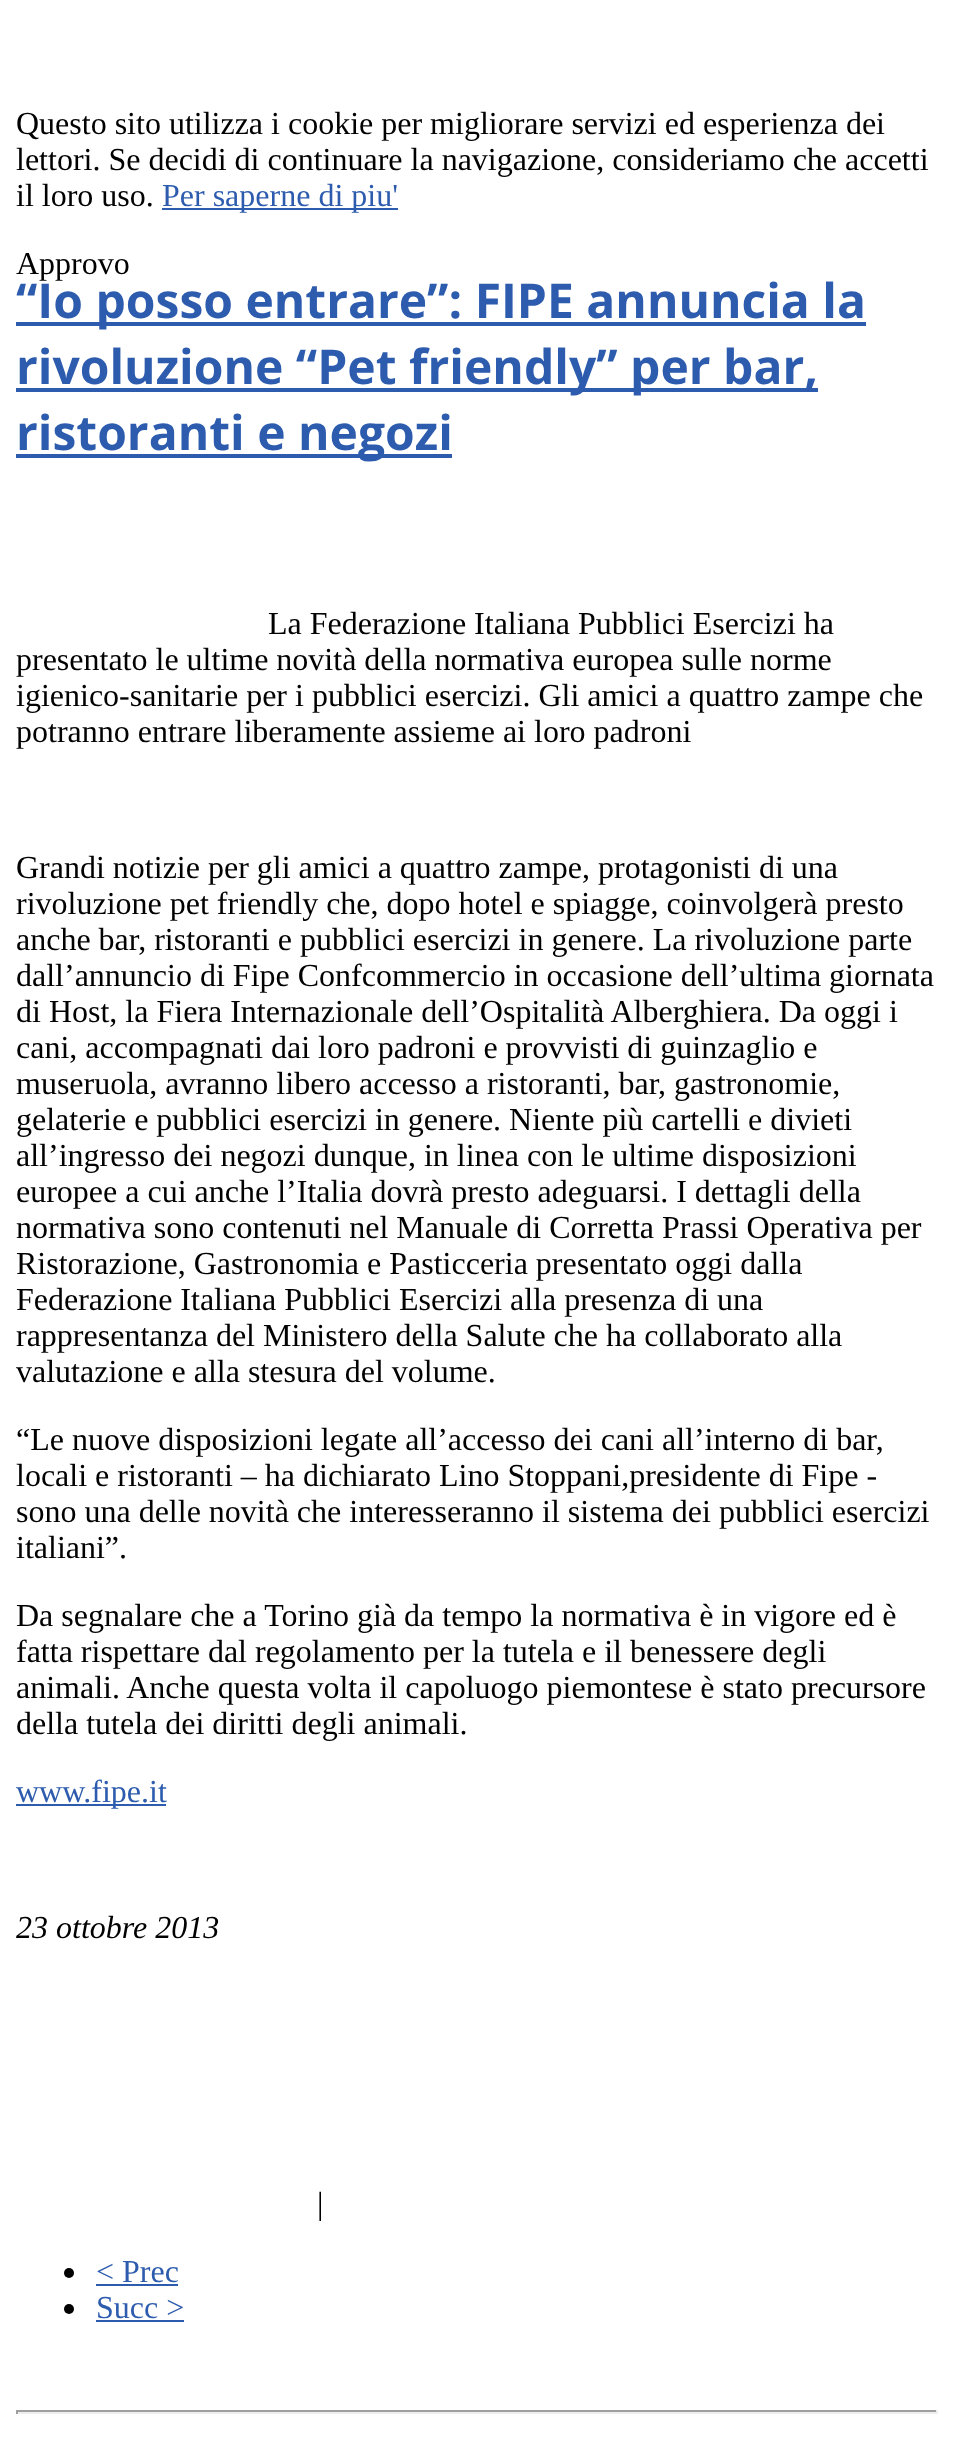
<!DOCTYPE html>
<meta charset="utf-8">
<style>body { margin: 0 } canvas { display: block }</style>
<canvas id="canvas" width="953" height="2444"></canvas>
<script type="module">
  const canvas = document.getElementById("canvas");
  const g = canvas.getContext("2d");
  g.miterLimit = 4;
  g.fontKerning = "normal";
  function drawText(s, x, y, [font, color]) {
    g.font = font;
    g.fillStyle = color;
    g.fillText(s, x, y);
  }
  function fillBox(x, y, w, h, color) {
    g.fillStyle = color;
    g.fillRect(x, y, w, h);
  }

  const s1 = ["32px Liberation Serif", "#000000"];
  const s2 = ["32px Liberation Serif", "#2D5CAE"];
  const s3 = ["bold 48px Open Sans", "#2D5CAE"];
  const s4 = ["italic 32px Liberation Serif", "#000000"];

  fillBox(0, 0, 953, 2444, "#FFFFFF");
  drawText("Questo sito utilizza i cookie per migliorare servizi ed esperienza dei", 16, 134, s1);
  drawText("lettori. Se decidi di continuare la navigazione, consideriamo che accetti", 16, 170, s1);
  drawText("il loro uso.", 16, 206, s1);
  fillBox(162, 208, 236, 2, "#2D5CAE");
  drawText("Per saperne di piu'", 162, 206, s2);
  drawText("Approvo", 16, 274, s1);
  fillBox(16, 322, 850, 4, "#2D5CAE");
  drawText("“Io posso entrare”: FIPE annuncia la", 16, 318, s3);
  fillBox(16, 388, 802, 4, "#2D5CAE");
  drawText("rivoluzione “Pet friendly” per bar,", 16, 384, s3);
  fillBox(16, 454, 436, 4, "#2D5CAE");
  drawText("ristoranti e negozi", 16, 450, s3);
  drawText("La Federazione Italiana Pubblici Esercizi ha", 268, 634, s1);
  drawText("presentato le ultime novità della normativa europea sulle norme", 16, 670, s1);
  drawText("igienico-sanitarie per i pubblici esercizi. Gli amici a quattro zampe che", 16, 706, s1);
  drawText("potranno entrare liberamente assieme ai loro padroni", 16, 742, s1);
  drawText("Grandi notizie per gli amici a quattro zampe, protagonisti di una", 16, 878, s1);
  drawText("rivoluzione pet friendly che, dopo hotel e spiagge, coinvolgerà presto", 16, 914, s1);
  drawText("anche bar, ristoranti e pubblici esercizi in genere. La rivoluzione parte", 16, 950, s1);
  drawText("dall’annuncio di Fipe Confcommercio in occasione dell’ultima giornata", 16, 986, s1);
  drawText("di Host, la Fiera Internazionale dell’Ospitalità Alberghiera. Da oggi i", 16, 1022, s1);
  drawText("cani, accompagnati dai loro padroni e provvisti di guinzaglio e", 16, 1058, s1);
  drawText("museruola, avranno libero accesso a ristoranti, bar, gastronomie,", 16, 1094, s1);
  drawText("gelaterie e pubblici esercizi in genere. Niente più cartelli e divieti", 16, 1130, s1);
  drawText("all’ingresso dei negozi dunque, in linea con le ultime disposizioni", 16, 1166, s1);
  drawText("europee a cui anche l’Italia dovrà presto adeguarsi. I dettagli della", 16, 1202, s1);
  drawText("normativa sono contenuti nel Manuale di Corretta Prassi Operativa per", 16, 1238, s1);
  drawText("Ristorazione, Gastronomia e Pasticceria presentato oggi dalla", 16, 1274, s1);
  drawText("Federazione Italiana Pubblici Esercizi alla presenza di una", 16, 1310, s1);
  drawText("rappresentanza del Ministero della Salute che ha collaborato alla", 16, 1346, s1);
  drawText("valutazione e alla stesura del volume.", 16, 1382, s1);
  drawText("“Le nuove disposizioni legate all’accesso dei cani all’interno di bar,", 16, 1450, s1);
  drawText("locali e ristoranti – ha dichiarato Lino Stoppani,presidente di Fipe -", 16, 1486, s1);
  drawText("sono una delle novità che interesseranno il sistema dei pubblici esercizi", 16, 1522, s1);
  drawText("italiani”.", 16, 1558, s1);
  drawText("Da segnalare che a Torino già da tempo la normativa è in vigore ed è", 16, 1626, s1);
  drawText("fatta rispettare dal regolamento per la tutela e il benessere degli", 16, 1662, s1);
  drawText("animali. Anche questa volta il capoluogo piemontese è stato precursore", 16, 1698, s1);
  drawText("della tutela dei diritti degli animali.", 16, 1734, s1);
  fillBox(16, 1804, 150, 2, "#2D5CAE");
  drawText("www.fipe.it", 16, 1802, s2);
  drawText("23 ottobre 2013", 16, 1938, s4);
  drawText("|", 317, 2214, s1);
  g.beginPath();
  g.arc(69, 2273, 5, 0, Math.PI * 2);
  g.fill();
  drawText("< Prec", 96, 2282, s2);
  fillBox(96, 2284, 82, 2, "#2D5CAE");
  g.fillStyle = "#000000";
  g.beginPath();
  g.arc(69, 2309, 5, 0, Math.PI * 2);
  g.fill();
  drawText("Succ >", 96, 2318, s2);
  fillBox(96, 2320, 88, 2, "#2D5CAE");
  fillBox(16, 2410, 922, 2, "#9F9F9F");
  fillBox(936, 2410, 2, 4, "#EEEEEE");
  fillBox(16, 2412, 922, 2, "#EEEEEE");
  fillBox(16, 2410, 2, 4, "#9F9F9F");
</script>
